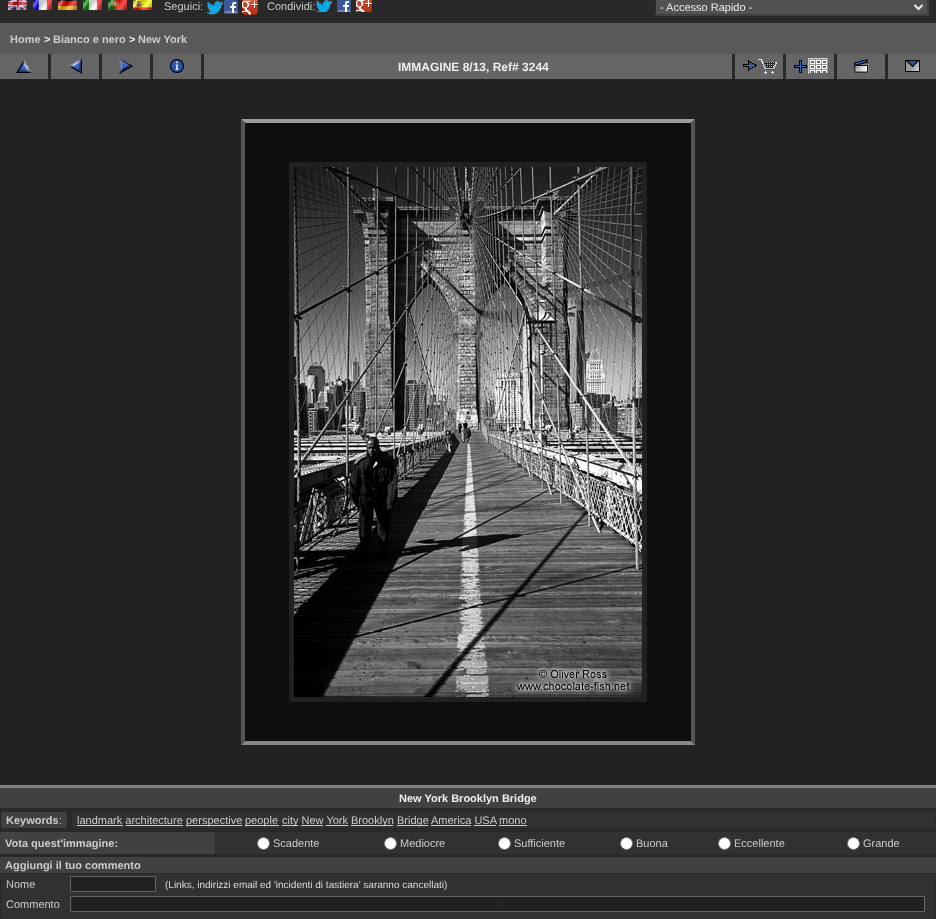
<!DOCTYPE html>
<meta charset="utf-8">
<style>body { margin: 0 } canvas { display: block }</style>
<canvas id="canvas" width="936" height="919"></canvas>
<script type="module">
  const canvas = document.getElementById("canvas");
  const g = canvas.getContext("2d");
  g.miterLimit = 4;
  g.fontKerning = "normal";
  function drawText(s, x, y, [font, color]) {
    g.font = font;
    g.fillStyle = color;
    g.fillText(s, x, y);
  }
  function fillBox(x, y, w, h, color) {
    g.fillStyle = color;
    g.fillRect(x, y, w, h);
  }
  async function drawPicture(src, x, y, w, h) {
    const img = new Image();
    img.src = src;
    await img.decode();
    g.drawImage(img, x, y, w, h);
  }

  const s1 = ["11px Liberation Sans", "#CCCCCC"];
  const s2 = ["11px Liberation Sans", "#EEEEEE"];
  const s3 = ["bold 11px Liberation Sans", "#CCCCCC"];
  const s4 = ["bold 11px Liberation Sans", "#EEEEEE"];
  const s5 = ["bold 12px Liberation Sans", "#EEEEEE"];
  const s6 = ["10px Liberation Sans", "#DDDDDD"];

  fillBox(0, 0, 936, 919, "#292929");
  await drawPicture("pic1.png", 8, 0, 19, 10);
  await drawPicture("pic2.png", 33, 0, 19, 10);
  await drawPicture("pic3.png", 58, 0, 19, 10);
  await drawPicture("pic4.png", 83, 0, 19, 10);
  await drawPicture("pic5.png", 108, 0, 19, 10);
  await drawPicture("pic6.png", 133, 0, 19, 10);
  drawText("Seguici:", 164, 10, s1);
  await drawPicture("pic7.png", 207, 1, 16, 14);
  await drawPicture("pic8.png", 224, 0, 14, 14);
  await drawPicture("pic9.png", 242, 0, 16, 15);
  drawText("Condividi:", 267, 10, s1);
  await drawPicture("pic10.png", 316, 0, 16, 12);
  await drawPicture("pic11.png", 337, 0, 14, 12);
  await drawPicture("pic12.png", 356, 0, 16, 12);
  fillBox(654, 0, 275, 16, "#515151");
  g.fillStyle = "#414141";
  g.beginPath();
  g.moveTo(929, -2);
  g.lineTo(929, 16);
  g.lineTo(927, 14);
  g.lineTo(927, 0);
  g.closePath();
  g.fill();
  g.beginPath();
  g.moveTo(929, 16);
  g.lineTo(654, 16);
  g.lineTo(656, 14);
  g.lineTo(927, 14);
  g.closePath();
  g.fill();
  g.fillStyle = "#2B2B2B";
  g.beginPath();
  g.moveTo(654, 16);
  g.lineTo(654, -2);
  g.lineTo(656, 0);
  g.lineTo(656, 14);
  g.closePath();
  g.fill();
  g.beginPath();
  g.moveTo(914.5, 5);
  g.lineTo(918.5, 9);
  g.lineTo(922.5, 5);
  g.strokeStyle = "#EEEEEE";
  g.lineWidth = 2;
  g.stroke();
  drawText("- Accesso Rapido -", 660, 11, s2);
  fillBox(0, 23, 936, 31, "#595959");
  drawText("Home", 10, 43, s3);
  drawText(">", 44, 43, s4);
  drawText("Bianco e nero", 53, 43, s3);
  drawText(">", 129, 43, s4);
  drawText("New York", 138, 43, s3);
  fillBox(0, 54, 48, 25, "#656565");
  await drawPicture("pic13.png", 16, 59, 16, 14);
  fillBox(51, 54, 48, 25, "#656565");
  await drawPicture("pic14.png", 68, 58, 14, 16);
  fillBox(102, 54, 48, 25, "#656565");
  await drawPicture("pic15.png", 119, 58, 14, 16);
  fillBox(153, 54, 48, 25, "#656565");
  await drawPicture("pic16.png", 170, 59, 14, 14);
  fillBox(204, 54, 528, 25, "#656565");
  drawText("IMMAGINE 8/13, Ref# 3244", 398, 71, s5);
  fillBox(735, 54, 48, 25, "#656565");
  await drawPicture("pic17.png", 743, 59, 34, 15);
  fillBox(786, 54, 48, 25, "#656565");
  await drawPicture("pic18.png", 794, 58, 34, 16);
  fillBox(837, 54, 48, 25, "#656565");
  await drawPicture("pic19.png", 854, 59, 15, 14);
  fillBox(888, 54, 48, 25, "#656565");
  await drawPicture("pic20.png", 905, 60, 15, 12);
  fillBox(0, 79, 936, 706, "#222222");
  fillBox(241, 119, 454, 626, "#0E0E0E");
  g.fillStyle = "#999999";
  g.beginPath();
  g.moveTo(241, 119);
  g.lineTo(695, 119);
  g.lineTo(691, 123);
  g.lineTo(245, 123);
  g.closePath();
  g.fill();
  g.fillStyle = "#555555";
  g.beginPath();
  g.moveTo(695, 119);
  g.lineTo(695, 745);
  g.lineTo(691, 741);
  g.lineTo(691, 123);
  g.closePath();
  g.fill();
  g.fillStyle = "#888888";
  g.beginPath();
  g.moveTo(695, 745);
  g.lineTo(241, 745);
  g.lineTo(245, 741);
  g.lineTo(691, 741);
  g.closePath();
  g.fill();
  g.fillStyle = "#555555";
  g.beginPath();
  g.moveTo(241, 745);
  g.lineTo(241, 119);
  g.lineTo(245, 123);
  g.lineTo(245, 741);
  g.closePath();
  g.fill();
  g.strokeStyle = "#212121";
  g.lineWidth = 5;
  g.strokeRect(291.5, 164.5, 353, 535);
  await drawPicture("pic21.png", 294, 167, 348, 530);
  fillBox(0, 788, 936, 20, "#414141");
  fillBox(0, 785, 936, 3, "#7F7F7F");
  drawText("New York Brooklyn Bridge", 399, 802, s4);
  fillBox(1, 812, 66, 16, "#414141");
  drawText("Keywords", 6, 824, s3);
  drawText(":", 59, 824, s1);
  fillBox(72, 812, 863, 16, "#313131");
  drawText("landmark architecture", 77, 824, s1);
  fillBox(77, 825, 46, 1, "#CDCDCD");
  fillBox(186, 825, 56, 1, "#CDCDCD");
  drawText("perspective", 186, 824, s1);
  fillBox(245, 825, 34, 1, "#CDCDCD");
  drawText("people", 245, 824, s1);
  fillBox(282, 825, 16, 1, "#CDCDCD");
  drawText("city New York", 282, 824, s1);
  fillBox(351, 825, 42, 1, "#CDCDCD");
  drawText("Brooklyn", 351, 824, s1);
  fillBox(397, 825, 31, 1, "#CDCDCD");
  drawText("Bridge", 397, 824, s1);
  drawText("America USA", 431, 824, s1);
  fillBox(431, 825, 40, 1, "#CDCDCD");
  drawText("mono", 499, 824, s1);
  fillBox(499, 825, 28, 1, "#CDCDCD");
  fillBox(126, 825, 57, 1, "#CDCDCD");
  fillBox(301, 825, 22, 1, "#CDCDCD");
  fillBox(326, 825, 22, 1, "#CDCDCD");
  fillBox(474, 825, 22, 1, "#CDCDCD");
  fillBox(0, 832, 215, 22, "#414141");
  drawText("Vota quest'immagine:", 5, 847, s3);
  fillBox(215, 832, 721, 22, "#313131");
  g.fillStyle = "#FFFFFF";
  g.beginPath();
  g.arc(263.5, 843.5, 6, 0, Math.PI * 2);
  g.fill();
  g.strokeStyle = "#767676";
  g.lineWidth = 1;
  g.stroke();
  drawText("Scadente", 273, 847, s1);
  g.fillStyle = "#FFFFFF";
  g.beginPath();
  g.arc(390.5, 843.5, 6, 0, Math.PI * 2);
  g.fill();
  g.stroke();
  drawText("Mediocre", 400, 847, s1);
  g.fillStyle = "#FFFFFF";
  g.beginPath();
  g.arc(504.5, 843.5, 6, 0, Math.PI * 2);
  g.fill();
  g.stroke();
  drawText("Sufficiente", 514, 847, s1);
  g.fillStyle = "#FFFFFF";
  g.beginPath();
  g.arc(626.5, 843.5, 6, 0, Math.PI * 2);
  g.fill();
  g.stroke();
  drawText("Buona", 636, 847, s1);
  g.fillStyle = "#FFFFFF";
  g.beginPath();
  g.arc(724.5, 843.5, 6, 0, Math.PI * 2);
  g.fill();
  g.stroke();
  drawText("Eccellente", 734, 847, s1);
  g.fillStyle = "#FFFFFF";
  g.beginPath();
  g.arc(853.5, 843.5, 6, 0, Math.PI * 2);
  g.fill();
  g.stroke();
  drawText("Grande", 863, 847, s1);
  fillBox(0, 857, 936, 16, "#414141");
  drawText("Aggiungi il tuo commento", 5, 869, s3);
  fillBox(1, 874, 934, 20, "#313131");
  drawText("Nome", 6, 888, s1);
  g.fillStyle = "#212121";
  g.beginPath();
  g.rect(70.5, 876.5, 85, 15);
  g.fill();
  g.strokeStyle = "#666666";
  g.stroke();
  drawText("(Links, indirizzi email ed 'incidenti di tastiera' saranno cancellati)", 165, 888, s6);
  fillBox(1, 894, 934, 25, "#313131");
  drawText("Commento", 6, 908, s1);
  g.fillStyle = "#212121";
  g.beginPath();
  g.rect(70.5, 896.5, 854, 15);
  g.fill();
  g.stroke();
</script>
